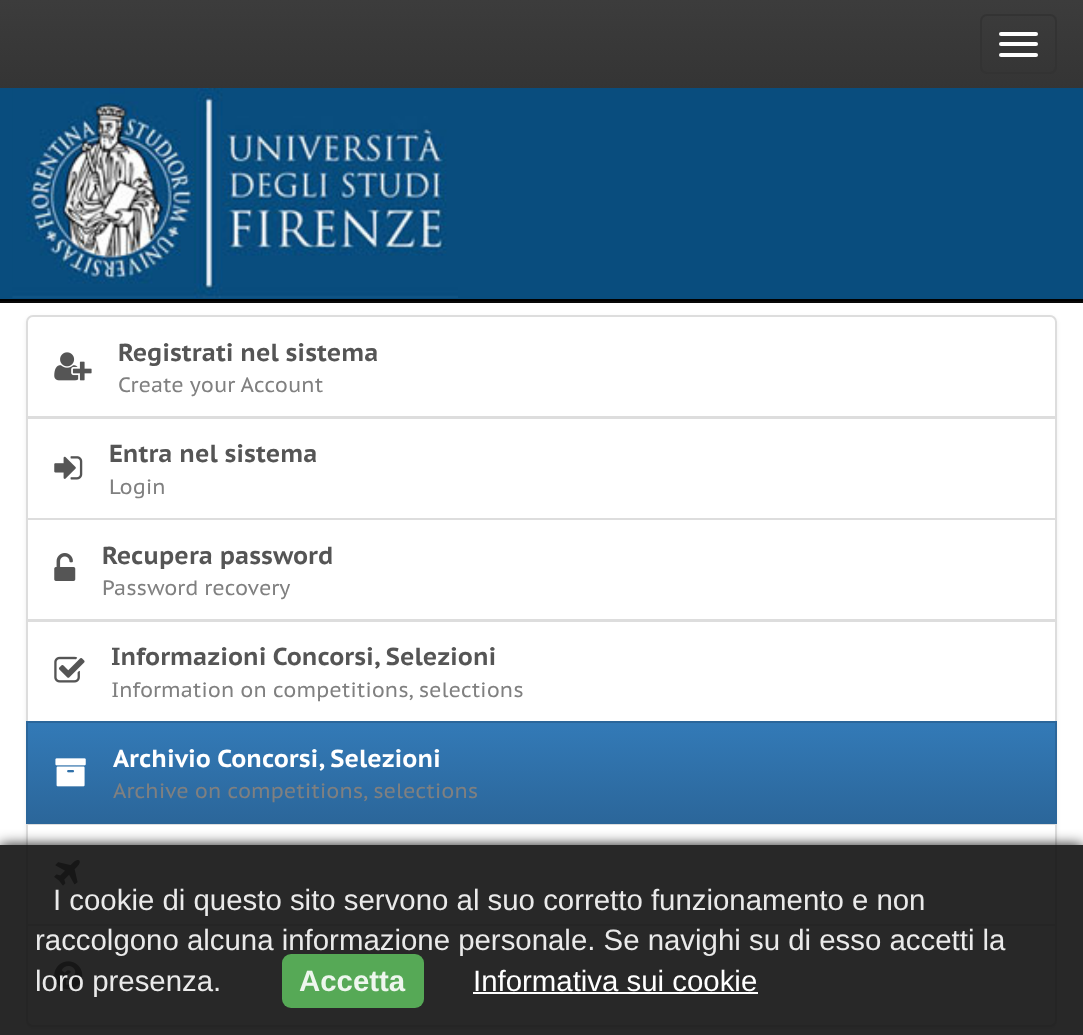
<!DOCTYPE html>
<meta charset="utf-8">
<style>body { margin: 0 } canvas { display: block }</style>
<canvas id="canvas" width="1083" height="1035"></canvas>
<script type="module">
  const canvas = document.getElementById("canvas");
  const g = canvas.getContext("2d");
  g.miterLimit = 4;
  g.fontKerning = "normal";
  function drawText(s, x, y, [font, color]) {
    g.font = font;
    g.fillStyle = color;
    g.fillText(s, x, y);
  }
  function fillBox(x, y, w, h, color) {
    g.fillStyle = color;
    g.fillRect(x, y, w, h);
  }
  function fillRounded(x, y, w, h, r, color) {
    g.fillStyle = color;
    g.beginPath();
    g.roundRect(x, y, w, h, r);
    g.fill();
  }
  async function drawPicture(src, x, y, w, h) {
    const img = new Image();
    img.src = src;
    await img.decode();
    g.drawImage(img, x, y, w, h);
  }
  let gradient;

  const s1 = ["bold 24.5px PT Sans Caption", "#555555"];
  const s2 = ["20.8px PT Sans Caption", "#808080"];
  const s3 = ["bold 24.5px PT Sans Caption", "#FFFFFF"];
  const s4 = ["29.4px Liberation Sans", "#EAEAEA"];
  const s5 = ["bold 29.4px Liberation Sans", "#EEF6EE"];
  const s6 = ["29.4px Liberation Sans", "#FFFFFF"];

  fillBox(0, 0, 1083, 1035, "#FFFFFF");
  gradient = g.createLinearGradient(542, 0, 542, 301);
  gradient.addColorStop(0, "#3C3C3C");
  gradient.addColorStop(1, "#222222");
  g.fillStyle = gradient;
  g.fillRect(0, 0, 1083, 88);
  fillBox(0, 301, 1083, 2, "#080808");
  g.beginPath();
  g.roundRect(981, 15, 75, 58, 6);
  g.strokeStyle = "#333333";
  g.lineWidth = 2;
  g.stroke();
  fillRounded(999, 32, 39, 4, 2, "#FFFFFF");
  fillRounded(999, 42, 39, 4, 2, "#FFFFFF");
  fillRounded(999, 53, 39, 4, 2, "#FFFFFF");
  fillBox(0, 88, 1083, 211, "#094D7E");
  fillBox(0, 299, 1083, 2, "#000000");
  await drawPicture("pic1.png", 12, 88, 446, 210);
  g.fillStyle = "rgba(0, 0, 0, 0.07)";
  g.filter = "blur(2px)";
  g.beginPath();
  g.roundRect(26, 317, 1031, 712, 7);
  g.fill();
  g.filter = "none";
  g.fillStyle = "#FFFFFF";
  g.beginPath();
  g.roundRect(27, 316, 1029, 101, [6, 6, 0, 0]);
  g.fill();
  g.strokeStyle = "#DDDDDD";
  g.stroke();
  await drawPicture("pic2.png", 54, 352, 38, 29);
  drawText("Registrati nel sistema", 118, 361, s1);
  drawText("Create your Account", 118, 392, s2);
  g.fillStyle = "#FFFFFF";
  g.beginPath();
  g.rect(27, 418, 1029, 101);
  g.fill();
  g.stroke();
  await drawPicture("pic3.png", 54, 456, 29, 24);
  drawText("Entra nel sistema", 109, 462, s1);
  drawText("Login", 109, 494, s2);
  g.fillStyle = "#FFFFFF";
  g.beginPath();
  g.rect(27, 519, 1029, 101);
  g.fill();
  g.stroke();
  await drawPicture("pic4.png", 54, 553, 22, 28);
  drawText("Recupera password", 102, 564, s1);
  drawText("Password recovery", 102, 595, s2);
  g.fillStyle = "#FFFFFF";
  g.beginPath();
  g.rect(27, 621, 1029, 101);
  g.fill();
  g.stroke();
  await drawPicture("pic5.png", 54, 656, 31, 27);
  drawText("Informazioni Concorsi, Selezioni", 111, 665, s1);
  drawText("Information on competitions, selections", 111, 697, s2);
  gradient = g.createLinearGradient(542, 723, 542, 823);
  gradient.addColorStop(0, "#337AB7");
  gradient.addColorStop(1, "#2B669A");
  g.fillStyle = gradient;
  g.fillRect(28, 723, 1027, 99);
  g.fillStyle = "#FFFFFF";
  g.beginPath();
  g.rect(27, 824, 1029, 101);
  g.fill();
  g.stroke();
  g.strokeStyle = "#2B669A";
  g.strokeRect(27, 722, 1029, 101);
  await drawPicture("pic6.png", 55, 758, 31, 29);
  drawText("Archivio Concorsi, Selezioni", 113, 767, s3);
  drawText("Archive on competitions, selections", 113, 798, s2);
  await drawPicture("pic7.png", 54, 860, 26, 26);
  g.fillStyle = "#FFFFFF";
  g.beginPath();
  g.roundRect(27, 925, 1029, 101, [0, 0, 6, 6]);
  g.fill();
  g.strokeStyle = "#DDDDDD";
  g.stroke();
  await drawPicture("pic8.png", 54, 961, 29, 29);
  g.save();
  g.beginPath();
  g.moveTo(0, 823);
  g.lineTo(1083, 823);
  g.lineTo(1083, 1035);
  g.lineTo(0, 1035);
  g.closePath();
  g.moveTo(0, 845);
  g.lineTo(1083, 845);
  g.lineTo(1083, 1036);
  g.lineTo(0, 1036);
  g.closePath();
  g.clip("evenodd");
  g.fillStyle = "rgba(0, 0, 0, 0.9)";
  g.filter = "blur(7px)";
  g.beginPath();
  g.rect(0, 845, 1083, 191);
  g.fill();
  g.filter = "none";
  g.restore();
  fillBox(0, 845, 1083, 190, "rgba(17, 17, 17, 0.9)");
  drawText("I cookie di questo sito servono al suo corretto funzionamento e non", 53, 910, s4);
  drawText("raccolgono alcuna informazione personale. Se navighi su di esso accetti la", 35, 950, s4);
  drawText("loro presenza.", 35, 991, s4);
  fillRounded(282, 954, 142, 54, 9, "rgba(91, 183, 91, 0.9)");
  drawText("Accetta", 299, 991, s5);
  drawText("Informativa sui cookie", 473, 991, s6);
  fillBox(473, 992, 285, 2, "#FFFFFF");
</script>
